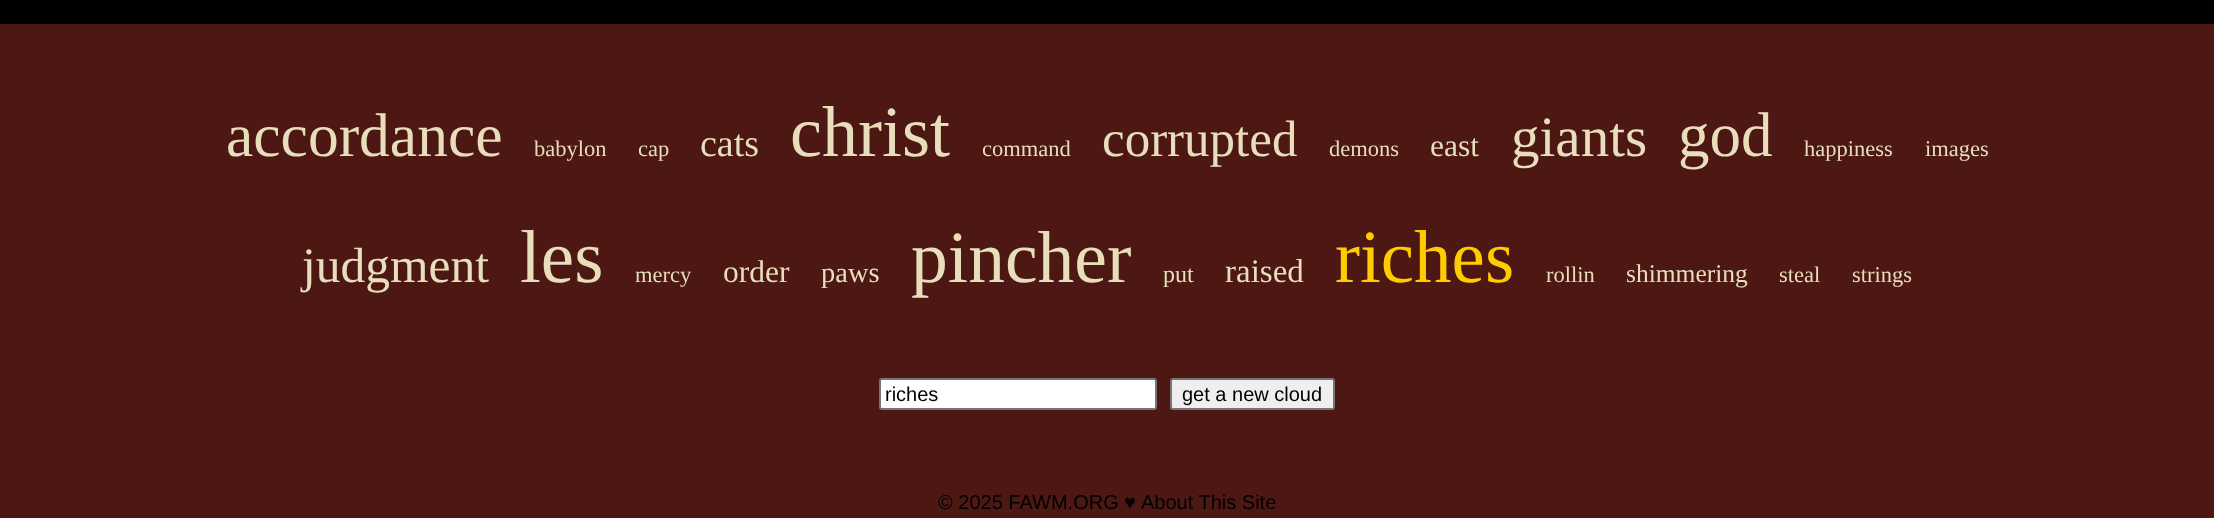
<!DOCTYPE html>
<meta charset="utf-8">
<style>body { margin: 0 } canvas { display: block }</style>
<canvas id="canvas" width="2214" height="518"></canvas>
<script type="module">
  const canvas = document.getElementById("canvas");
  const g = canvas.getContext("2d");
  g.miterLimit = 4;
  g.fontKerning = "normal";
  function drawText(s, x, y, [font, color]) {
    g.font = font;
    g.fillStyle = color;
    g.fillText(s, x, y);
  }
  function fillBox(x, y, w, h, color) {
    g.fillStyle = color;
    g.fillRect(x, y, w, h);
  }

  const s1 = ["61.5px Liberation Serif", "#E8DEBB"];
  const s2 = ["22.5px Liberation Serif", "#E8DEBB"];
  const s3 = ["38px Liberation Serif", "#E8DEBB"];
  const s4 = ["72px Liberation Serif", "#E8DEBB"];
  const s5 = ["51px Liberation Serif", "#E8DEBB"];
  const s6 = ["31.5px Liberation Serif", "#E8DEBB"];
  const s7 = ["57px Liberation Serif", "#E8DEBB"];
  const s8 = ["63px Liberation Serif", "#E8DEBB"];
  const s9 = ["49.5px Liberation Serif", "#E8DEBB"];
  const s10 = ["75px Liberation Serif", "#E8DEBB"];
  const s11 = ["28.5px Liberation Serif", "#E8DEBB"];
  const s12 = ["73.5px Liberation Serif", "#E8DEBB"];
  const s13 = ["24px Liberation Serif", "#E8DEBB"];
  const s14 = ["33px Liberation Serif", "#E8DEBB"];
  const s15 = ["75px Liberation Serif", "#FFCC00"];
  const s16 = ["25.5px Liberation Serif", "#E8DEBB"];
  const s17 = ["20px Liberation Sans", "#000000"];

  fillBox(0, 0, 2214, 518, "#4D1814");
  fillBox(0, 0, 2214, 24, "#000000");
  drawText("accordance", 226, 156, s1);
  drawText("babylon", 534, 156, s2);
  drawText("cap", 638, 156, s2);
  drawText("cats", 700, 156, s3);
  drawText("christ", 790, 156, s4);
  drawText("command", 982, 156, s2);
  drawText("corrupted", 1102, 156, s5);
  drawText("demons", 1329, 156, s2);
  drawText("east", 1430, 156, s6);
  drawText("giants", 1511, 156, s7);
  drawText("god", 1678, 156, s8);
  drawText("happiness", 1804, 156, s2);
  drawText("images", 1925, 156, s2);
  drawText("judgment", 302, 282, s9);
  drawText("les", 520, 282, s10);
  drawText("mercy", 635, 282, s2);
  drawText("order", 723, 282, s6);
  drawText("paws", 821, 282, s11);
  drawText("pincher", 911, 282, s12);
  drawText("put", 1163, 282, s13);
  drawText("raised", 1225, 282, s14);
  drawText("riches", 1335, 282, s15);
  drawText("rollin", 1546, 282, s2);
  drawText("shimmering", 1626, 282, s16);
  drawText("steal", 1779, 282, s2);
  drawText("strings", 1852, 282, s2);
  g.fillStyle = "#FFFFFF";
  g.beginPath();
  g.roundRect(880, 379, 276, 30, 2);
  g.fill();
  g.strokeStyle = "#767676";
  g.lineWidth = 2;
  g.stroke();
  drawText("riches", 885, 401, s17);
  g.fillStyle = "#EFEFEF";
  g.beginPath();
  g.roundRect(1171, 379, 163, 30, 2);
  g.fill();
  g.stroke();
  drawText("get a new cloud", 1182, 401, s17);
  drawText("© 2025 FAWM.ORG", 938, 509, s17);
  drawText("♥", 1124, 509, s17);
  drawText("About This Site", 1141, 509, s17);
</script>
